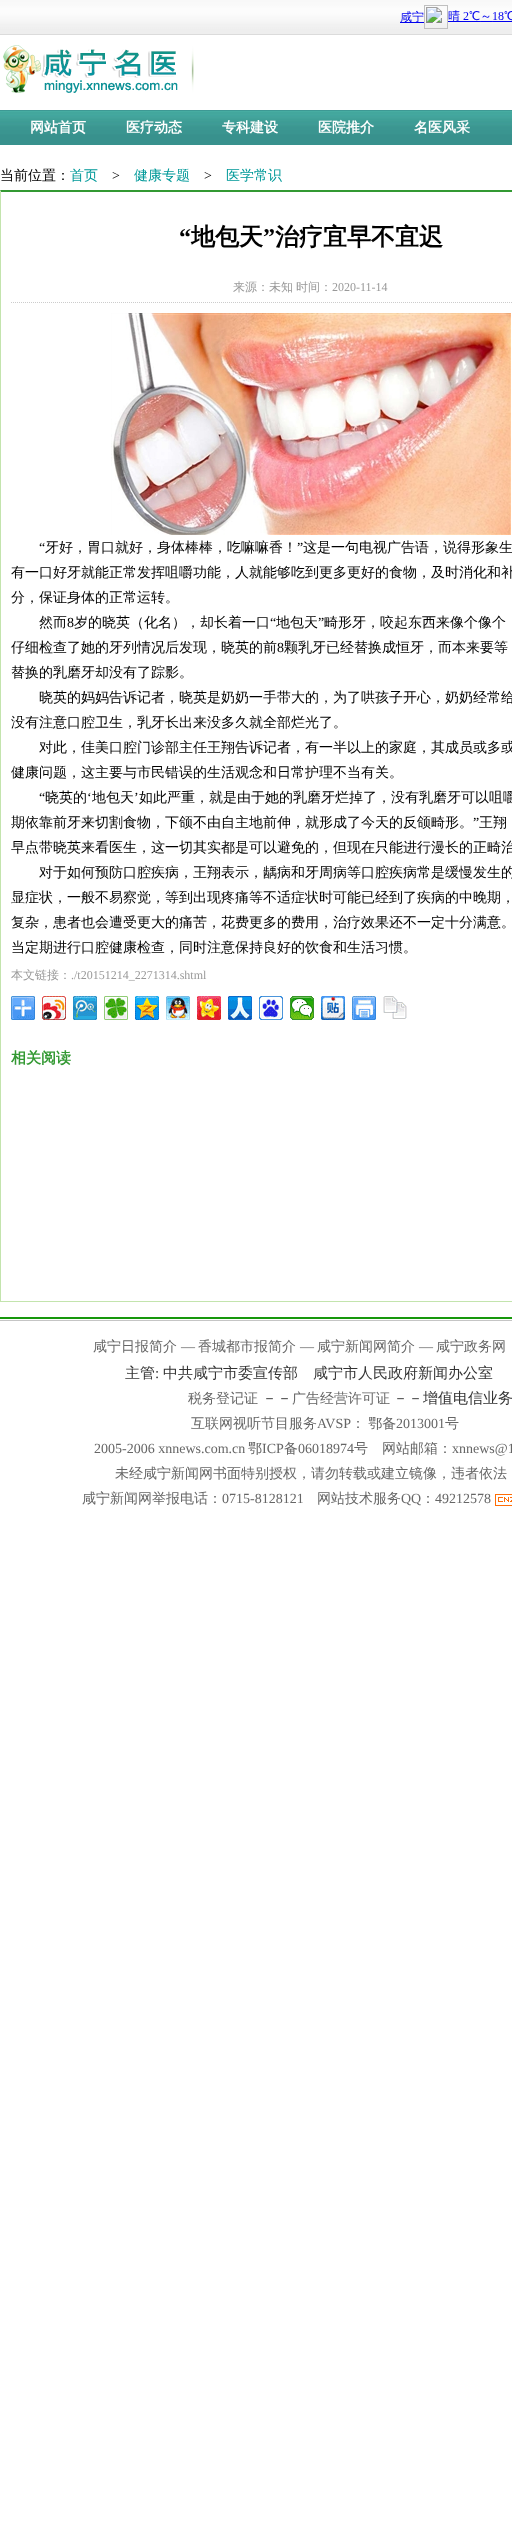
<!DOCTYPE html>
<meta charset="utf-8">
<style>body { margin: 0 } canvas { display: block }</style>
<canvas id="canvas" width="512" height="2537"></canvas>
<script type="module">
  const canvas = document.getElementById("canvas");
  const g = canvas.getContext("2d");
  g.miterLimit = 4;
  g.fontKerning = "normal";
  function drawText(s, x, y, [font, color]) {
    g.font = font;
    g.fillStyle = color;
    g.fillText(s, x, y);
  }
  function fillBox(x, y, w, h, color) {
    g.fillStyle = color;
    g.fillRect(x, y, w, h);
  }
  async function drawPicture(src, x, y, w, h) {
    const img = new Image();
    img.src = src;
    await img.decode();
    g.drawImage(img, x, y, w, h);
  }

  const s1 = ["bold 14px WenQuanYi Zen Hei", "#FFFFFF"];
  const s2 = ["500 14px WenQuanYi Zen Hei", "#000000"];
  const s3 = ["500 14px WenQuanYi Zen Hei", "#009999"];
  const s4 = ["14px Liberation Serif", "#000000"];
  const s5 = ["bold 24px Liberation Serif", "#000000"];
  const s6 = ["bold 24px WenQuanYi Zen Hei", "#000000"];
  const s7 = ["500 12px WenQuanYi Zen Hei", "#999999"];
  const s8 = ["12px Liberation Serif", "#999999"];
  const s9 = ["bold 15px WenQuanYi Zen Hei", "#339933"];
  const s10 = ["500 14px WenQuanYi Zen Hei", "#666666"];
  const s11 = ["14px Liberation Serif", "#666666"];
  const s12 = ["500 15px WenQuanYi Zen Hei", "#333333"];
  const s13 = ["15px Liberation Serif", "#333333"];

  fillBox(0, 0, 512, 2537, "#FFFFFF");
  await drawPicture("pic1.png", 0, 0, 512, 35);
  await drawPicture("pic2.png", 400, 5, 112, 24);
  await drawPicture("pic3.png", 3, 45, 191, 48);
  await drawPicture("pic4.png", 0, 110, 512, 35);
  drawText("网站首页", 30, 132, s1);
  drawText("医疗动态", 126, 132, s1);
  drawText("专科建设", 222, 132, s1);
  drawText("医院推介", 318, 132, s1);
  drawText("名医风采", 414, 132, s1);
  drawText("当前位置：", 0, 180, s2);
  drawText("首页", 70, 180, s3);
  drawText(">", 112, 180, s4);
  drawText("健康专题", 134, 180, s3);
  drawText(">", 204, 180, s4);
  drawText("医学常识", 226, 180, s3);
  g.fillStyle = "#339933";
  g.beginPath();
  g.moveTo(0, 190);
  g.lineTo(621, 190);
  g.lineTo(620, 192);
  g.lineTo(1, 192);
  g.closePath();
  g.fill();
  fillBox(0, 1301, 512, 1, "#C3E4AD");
  g.beginPath();
  g.moveTo(0, 1302);
  g.lineTo(0, 190);
  g.lineTo(1, 192);
  g.lineTo(1, 1301);
  g.closePath();
  g.fill();
  drawText("“", 179, 245, s5);
  drawText("地包天", 191, 245, s6);
  drawText("”", 263, 245, s5);
  drawText("治疗宜早不宜迟", 275, 245, s6);
  g.beginPath();
  g.moveTo(11, 302.5);
  g.lineTo(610, 302.5);
  g.strokeStyle = "#CCCCCC";
  g.setLineDash([1, 1]);
  g.stroke();
  drawText("来源：未知", 233, 291, s7);
  drawText("时间：", 296, 291, s7);
  drawText("2020-11-14", 332, 291, s8);
  await drawPicture("pic5.png", 111, 313, 400, 222);
  drawText("“", 39, 552, s4);
  drawText("牙好，胃口就好，身体棒棒，吃嘛嘛香！", 45, 552, s2);
  drawText("”", 297, 552, s4);
  drawText("这是一句电视广告语，说得形象生", 303, 552, s2);
  drawText("有一口好牙就能正常发挥咀嚼功能，人就能够吃到更多更好的食物，及时消化和补", 11, 577, s2);
  drawText("分，保证身体的正常运转。", 11, 602, s2);
  drawText("然而", 39, 627, s2);
  drawText("8", 67, 627, s4);
  drawText("岁的晓英（化名），却长着一口", 74, 627, s2);
  drawText("“", 270, 627, s4);
  drawText("地包天", 276, 627, s2);
  drawText("”", 318, 627, s4);
  drawText("畸形牙，咬起东西来像个像个", 324, 627, s2);
  drawText("仔细检查了她的牙列情况后发现，晓英的前", 11, 652, s2);
  drawText("8", 277, 652, s4);
  drawText("颗乳牙已经替换成恒牙，而本来要等", 284, 652, s2);
  drawText("替换的乳磨牙却没有了踪影。", 11, 677, s2);
  drawText("晓英的妈妈告诉记者，晓英是奶奶一手带大的，为了哄孩子开心，奶奶经常给", 39, 702, s2);
  drawText("没有注意口腔卫生，乳牙长出来没多久就全部烂光了。", 11, 727, s2);
  drawText("对此，佳美口腔门诊部主任王翔告诉记者，有一半以上的家庭，其成员或多或", 39, 752, s2);
  drawText("健康问题，这主要与市民错误的生活观念和日常护理不当有关。", 11, 777, s2);
  drawText("“", 39, 802, s4);
  drawText("晓英的", 45, 802, s2);
  drawText("‘", 87, 802, s4);
  drawText("地包天", 92, 802, s2);
  drawText("’", 134, 802, s4);
  drawText("如此严重，就是由于她的乳磨牙烂掉了，没有乳磨牙可以咀嚼", 139, 802, s2);
  drawText("期依靠前牙来切割食物，下颌不由自主地前伸，就形成了今天的反颌畸形。", 11, 827, s2);
  drawText("”", 473, 827, s4);
  drawText("王翔", 479, 827, s2);
  drawText("早点带晓英来看医生，这一切其实都是可以避免的，但现在只能进行漫长的正畸治", 11, 852, s2);
  drawText("对于如何预防口腔疾病，王翔表示，龋病和牙周病等口腔疾病常是缓慢发生的", 39, 877, s2);
  drawText("显症状，一般不易察觉，等到出现疼痛等不适症状时可能已经到了疾病的中晚期，", 11, 902, s2);
  drawText("复杂，患者也会遭受更大的痛苦，花费更多的费用，治疗效果还不一定十分满意。", 11, 927, s2);
  drawText("当定期进行口腔健康检查，同时注意保持良好的饮食和生活习惯。", 11, 952, s2);
  drawText("本文链接：", 11, 979, s7);
  drawText("./t20151214_2271314.shtml", 71, 979, s8);
  await drawPicture("pic6.png", 11, 996, 24, 24);
  await drawPicture("pic7.png", 42, 996, 24, 24);
  await drawPicture("pic8.png", 73, 996, 24, 24);
  await drawPicture("pic9.png", 104, 996, 24, 24);
  await drawPicture("pic10.png", 135, 996, 24, 24);
  await drawPicture("pic11.png", 166, 996, 24, 24);
  await drawPicture("pic12.png", 197, 996, 24, 24);
  await drawPicture("pic13.png", 228, 996, 24, 24);
  await drawPicture("pic14.png", 259, 996, 24, 24);
  await drawPicture("pic15.png", 290, 996, 24, 24);
  await drawPicture("pic16.png", 321, 996, 24, 24);
  await drawPicture("pic17.png", 352, 996, 24, 24);
  await drawPicture("pic18.png", 383, 996, 24, 23);
  drawText("相关阅读", 11, 1063, s9);
  fillBox(0, 1317, 512, 2, "#17970C");
  fillBox(0, 1320, 512, 1, "#C5C5C5");
  drawText("咸宁日报简介", 93, 1351, s10);
  drawText("—", 181, 1351, s11);
  drawText("香城都市报简介", 198, 1351, s10);
  drawText("—", 300, 1351, s11);
  drawText("咸宁新闻网简介", 317, 1351, s10);
  drawText("—", 419, 1351, s11);
  drawText("咸宁政务网", 436, 1351, s10);
  drawText("主管", 125, 1378, s12);
  drawText(":", 155, 1378, s13);
  drawText("中共咸宁市委宣传部　咸宁市人民政府新闻办公室", 163, 1378, s12);
  drawText("税务登记证", 188, 1403, s10);
  drawText("－－", 262, 1403, s12);
  drawText("广告经营许可证", 292, 1403, s10);
  g.wordSpacing = "-1px";
  drawText("－－增值电信业务", 393, 1403, s12);
  g.wordSpacing = "0px";
  drawText("互联网视听节目服务", 191, 1428, s10);
  drawText("AVSP", 317, 1428, s11);
  g.wordSpacing = "-1px";
  drawText("： 鄂备", 351, 1428, s10);
  g.wordSpacing = "0px";
  drawText("2013001", 396, 1428, s11);
  drawText("号", 445, 1428, s10);
  drawText("2005-2006 xnnews.com.cn", 94, 1453, s11);
  drawText("鄂", 248, 1453, s10);
  drawText("ICP", 262, 1453, s11);
  drawText("备", 284, 1453, s10);
  drawText("06018974", 298, 1453, s11);
  drawText("号　网站邮箱：", 354, 1453, s10);
  drawText("xnnews@1", 452, 1453, s11);
  drawText("未经咸宁新闻网书面特别授权，请勿转载或建立镜像，违者依法", 115, 1478, s10);
  drawText("咸宁新闻网举报电话：", 82, 1503, s10);
  drawText("0715-8128121", 222, 1503, s11);
  drawText("网站技术服务", 317, 1503, s10);
  drawText("QQ", 401, 1503, s11);
  drawText("：", 421, 1503, s10);
  drawText("49212578", 435, 1503, s11);
  await drawPicture("pic19.png", 495, 1494, 17, 12);
</script>
